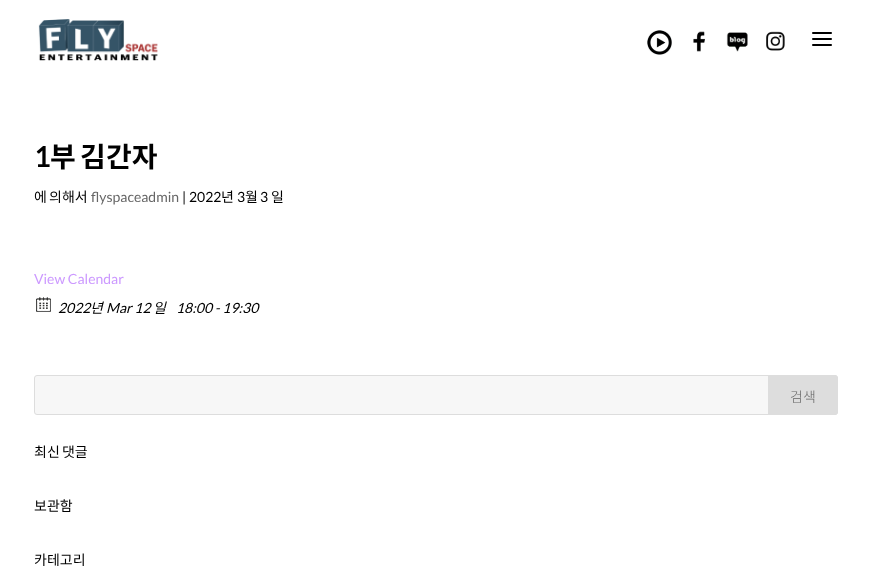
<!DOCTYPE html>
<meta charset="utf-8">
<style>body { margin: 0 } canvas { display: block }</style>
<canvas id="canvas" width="872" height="580"></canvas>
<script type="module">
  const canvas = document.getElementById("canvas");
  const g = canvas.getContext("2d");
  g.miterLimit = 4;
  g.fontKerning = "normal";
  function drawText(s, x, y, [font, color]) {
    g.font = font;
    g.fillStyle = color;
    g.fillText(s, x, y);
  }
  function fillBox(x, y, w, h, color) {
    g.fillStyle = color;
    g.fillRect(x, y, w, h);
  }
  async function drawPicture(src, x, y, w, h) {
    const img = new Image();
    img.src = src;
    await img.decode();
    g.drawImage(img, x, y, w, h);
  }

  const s1 = ["bold 28px Lato", "#000000"];
  const s2 = ["bold 28px Noto Sans KR", "#000000"];
  const s3 = ["14px Noto Sans KR", "#000000"];
  const s4 = ["14px Lato", "#666666"];
  const s5 = ["14px Lato", "#000000"];
  const s6 = ["14px Lato", "#CC99FF"];
  const s7 = ["italic 14px Lato", "#000000"];
  const s8 = ["italic 14px Noto Sans KR", "#000000"];
  const s9 = ["300 14px Noto Sans KR", "#666666"];

  fillBox(0, 0, 872, 580, "#FFFFFF");
  await drawPicture("pic1.png", 38, 19, 120, 42);
  await drawPicture("pic2.png", 647, 30, 25, 25);
  await drawPicture("pic3.png", 693, 31, 12, 21);
  await drawPicture("pic4.png", 726, 32, 22, 20);
  await drawPicture("pic5.png", 766, 31, 19, 20);
  await drawPicture("pic6.png", 812, 32, 20, 14);
  drawText("1", 34, 167, s1);
  g.wordSpacing = "-2px";
  drawText("부 김간자", 50, 167, s2);
  g.wordSpacing = "-1px";
  drawText("에 의해서", 34, 202, s3);
  g.wordSpacing = "0px";
  drawText("flyspaceadmin", 91, 202, s4);
  drawText("| 2022", 182, 202, s5);
  drawText("년", 221, 202, s3);
  drawText("3", 237, 202, s5);
  drawText("월", 245, 202, s3);
  drawText("3", 260, 202, s5);
  drawText("일", 271, 202, s3);
  drawText("View Calendar", 34, 284, s6);
  await drawPicture("pic7.png", 36, 297, 15, 15);
  drawText("2022", 58, 313, s7);
  drawText("년", 90, 313, s8);
  drawText("Mar 12", 106, 313, s7);
  drawText("일", 153, 313, s8);
  drawText("18:00 - 19:30", 176, 313, s7);
  g.fillStyle = "#F7F7F7";
  g.beginPath();
  g.roundRect(34.5, 375.5, 803, 39, 2.5);
  g.fill();
  g.strokeStyle = "#DDDDDD";
  g.stroke();
  g.fillStyle = "#DDDDDD";
  g.beginPath();
  g.roundRect(768.5, 375.5, 69, 39, [0, 2.5, 2.5, 0]);
  g.fill();
  g.stroke();
  drawText("검색", 790, 402, s9);
  g.wordSpacing = "-1px";
  drawText("최신 댓글", 34, 457, s3);
  g.wordSpacing = "0px";
  drawText("보관함", 34, 511, s3);
  drawText("카테고리", 34, 565, s3);
</script>
